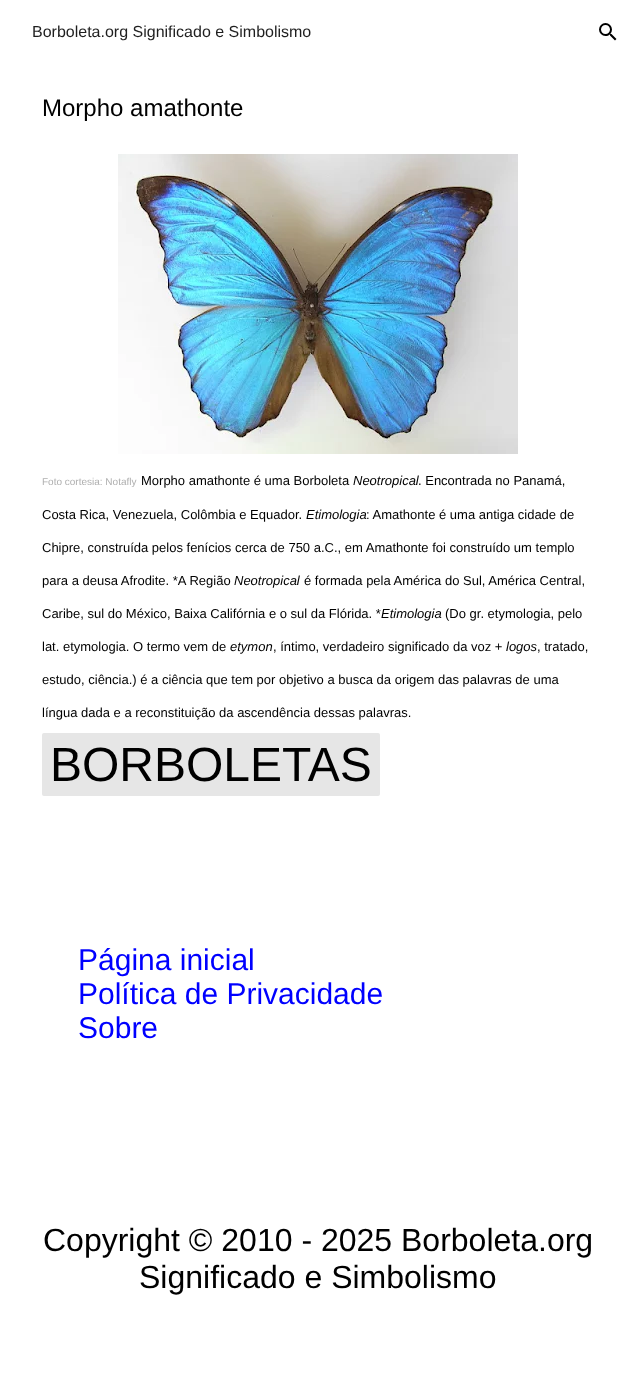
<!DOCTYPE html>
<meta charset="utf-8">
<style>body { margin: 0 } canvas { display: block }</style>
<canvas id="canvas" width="636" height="1384"></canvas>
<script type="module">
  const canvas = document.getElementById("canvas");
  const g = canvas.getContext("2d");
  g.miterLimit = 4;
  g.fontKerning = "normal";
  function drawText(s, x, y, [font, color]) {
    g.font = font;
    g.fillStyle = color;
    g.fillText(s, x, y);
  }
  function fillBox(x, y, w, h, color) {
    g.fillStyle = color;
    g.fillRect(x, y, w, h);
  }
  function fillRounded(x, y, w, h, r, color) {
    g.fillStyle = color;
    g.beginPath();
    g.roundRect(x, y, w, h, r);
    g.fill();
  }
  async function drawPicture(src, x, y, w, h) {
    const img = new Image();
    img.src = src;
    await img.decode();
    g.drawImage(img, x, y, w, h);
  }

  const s1 = ["16px Liberation Sans", "#1F1F1F"];
  const s2 = ["24px Liberation Sans", "#000000"];
  const s3 = ["10px Liberation Sans", "#AFAFAF"];
  const s4 = ["13px Liberation Sans", "#000000"];
  const s5 = ["italic 13px Liberation Sans", "#000000"];
  const s6 = ["48px Liberation Sans", "#000000"];
  const s7 = ["30px Liberation Sans", "#0000FF"];
  const s8 = ["32px Liberation Sans", "#000000"];

  fillBox(0, 0, 636, 1384, "#FFFFFF");
  drawText("Borboleta.org Significado e Simbolismo", 32, 37, s1);
  await drawPicture("pic1.png", 599, 23, 18, 18);
  drawText("Morpho amathonte", 42, 116, s2);
  await drawPicture("pic2.png", 118, 154, 400, 300);
  drawText("Foto cortesia: Notafly", 42, 485, s3);
  drawText("Morpho amathonte é uma Borboleta", 141, 485, s4);
  drawText("Neotropical", 353, 485, s5);
  drawText(". Encontrada no Panamá,", 418, 485, s4);
  drawText("Costa Rica, Venezuela, Colômbia e Equador.", 42, 519, s4);
  drawText("Etimologia", 306, 519, s5);
  drawText(": Amathonte é uma antiga cidade de", 366, 519, s4);
  drawText("Chipre, construída pelos fenícios cerca de 750 a.C., em Amathonte foi construído um templo", 42, 552, s4);
  drawText("para a deusa Afrodite. *A Região", 42, 585, s4);
  drawText("Neotropical", 234, 585, s5);
  drawText("é formada pela América do Sul, América Central,", 304, 585, s4);
  drawText("Caribe, sul do México, Baixa Califórnia e o sul da Flórida. *", 42, 618, s4);
  drawText("Etimologia", 381, 618, s5);
  drawText("(Do gr. etymologia, pelo", 445, 618, s4);
  drawText("lat. etymologia. O termo vem de", 42, 651, s4);
  drawText("etymon", 230, 651, s5);
  drawText(", íntimo, verdadeiro significado da voz +", 273, 651, s4);
  drawText("logos", 506, 651, s5);
  drawText(", tratado,", 537, 651, s4);
  drawText("estudo, ciência.) é a ciência que tem por objetivo a busca da origem das palavras de uma", 42, 684, s4);
  drawText("língua dada e a reconstituição da ascendência dessas palavras.", 42, 717, s4);
  fillRounded(42, 733, 338, 63, 2, "#E6E6E6");
  drawText("BORBOLETAS", 50, 781, s6);
  drawText("Página inicial", 78, 970, s7);
  drawText("Política de Privacidade", 78, 1004, s7);
  drawText("Sobre", 78, 1038, s7);
  drawText("Copyright © 2010 - 2025 Borboleta.org", 43, 1251, s8);
  drawText("Significado e Simbolismo", 139, 1288, s8);
</script>
